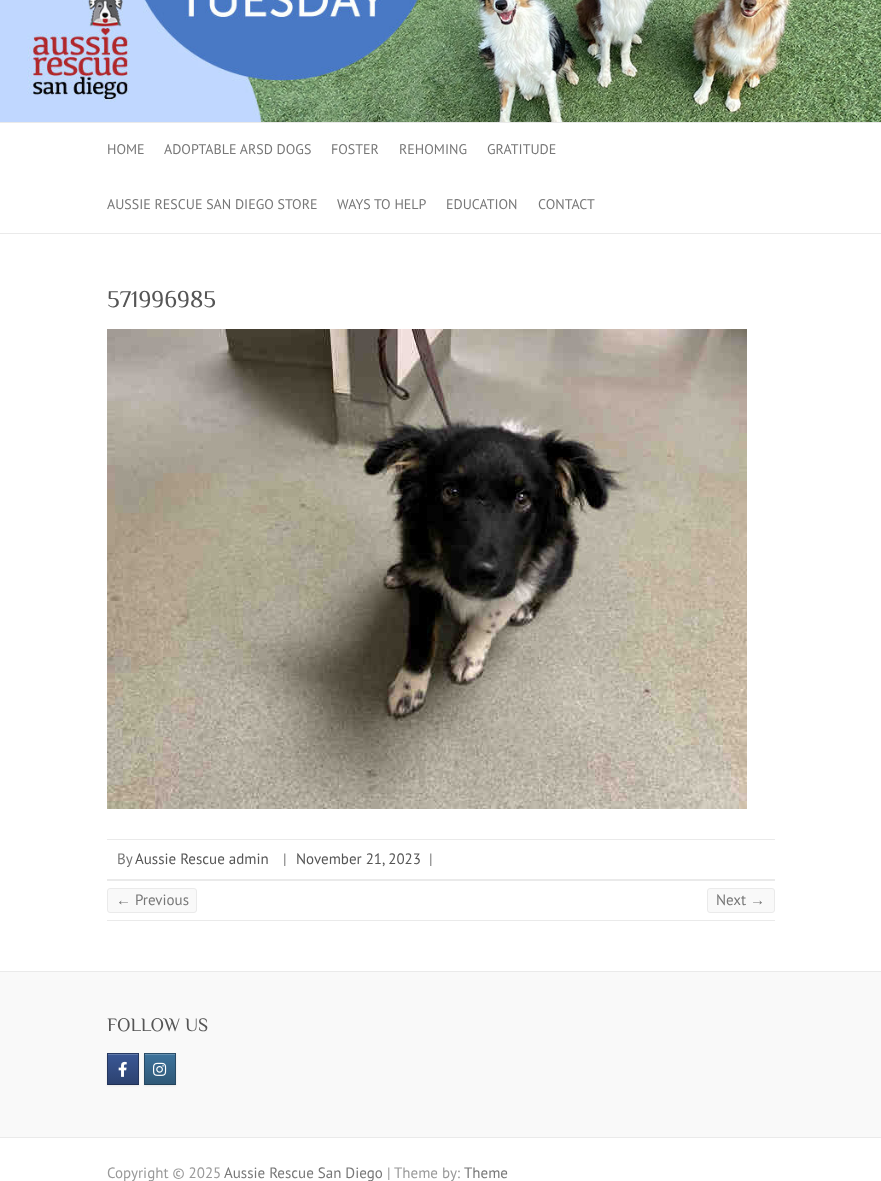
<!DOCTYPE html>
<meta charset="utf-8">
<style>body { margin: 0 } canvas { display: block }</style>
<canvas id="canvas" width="881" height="1181"></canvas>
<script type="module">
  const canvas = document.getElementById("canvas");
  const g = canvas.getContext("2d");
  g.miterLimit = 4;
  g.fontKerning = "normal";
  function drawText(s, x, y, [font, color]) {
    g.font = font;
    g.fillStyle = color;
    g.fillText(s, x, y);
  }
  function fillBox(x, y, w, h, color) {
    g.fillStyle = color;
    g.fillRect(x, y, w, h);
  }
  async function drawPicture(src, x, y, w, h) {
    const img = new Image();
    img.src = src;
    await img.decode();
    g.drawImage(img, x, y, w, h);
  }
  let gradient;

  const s1 = ["14px PT Sans", "#777777"];
  const s2 = ["24px Philosopher", "#555555"];
  const s3 = ["15px PT Sans", "#777777"];
  const s4 = ["15px PT Sans", "#555555"];
  const s5 = ["15px Liberation Sans", "#777777"];
  const s6 = ["19px Philosopher", "#555555"];
  const s7 = ["15px PT Sans", "#999999"];

  fillBox(0, 0, 881, 1181, "#FFFFFF");
  await drawPicture("pic1.png", 0, 0, 881, 122);
  fillBox(0, 122, 881, 1, "#EAEAEA");
  fillBox(0, 233, 881, 1, "#EAEAEA");
  drawText("HOME", 107, 154, s1);
  drawText("ADOPTABLE ARSD DOGS", 164, 154, s1);
  drawText("FOSTER", 331, 154, s1);
  drawText("REHOMING", 399, 154, s1);
  drawText("GRATITUDE", 487, 154, s1);
  drawText("AUSSIE RESCUE SAN DIEGO STORE", 107, 209, s1);
  drawText("WAYS TO HELP", 337, 209, s1);
  drawText("EDUCATION", 446, 209, s1);
  drawText("CONTACT", 538, 209, s1);
  drawText("571996985", 107, 307, s2);
  await drawPicture("pic2.png", 107, 329, 640, 480);
  fillBox(107, 839, 668, 1, "#EAEAEA");
  fillBox(107, 879, 668, 2, "#EAEAEA");
  drawText("By", 117, 864, s3);
  drawText("Aussie Rescue admin", 135, 864, s4);
  drawText("|", 283, 864, s3);
  drawText("November 21, 2023", 296, 864, s4);
  drawText("|", 429, 864, s3);
  fillBox(107, 920, 668, 1, "#EAEAEA");
  g.fillStyle = "#F9F9F9";
  g.beginPath();
  g.roundRect(107.5, 888.5, 89, 24, 2.5);
  g.fill();
  g.strokeStyle = "#EAEAEA";
  g.stroke();
  drawText("←", 116, 905, s5);
  drawText("Previous", 135, 905, s3);
  g.fillStyle = "#F9F9F9";
  g.beginPath();
  g.roundRect(707.5, 888.5, 67, 24, 2.5);
  g.fill();
  g.stroke();
  drawText("Next", 716, 905, s3);
  drawText("→", 750, 905, s5);
  fillBox(0, 972, 881, 165, "#F9F9F9");
  fillBox(0, 971, 881, 1, "#EAEAEA");
  drawText("FOLLOW US", 107, 1031, s6);
  g.fillStyle = "rgba(0, 0, 0, 0.07)";
  g.filter = "blur(1px)";
  g.beginPath();
  g.rect(107, 1054, 32, 32);
  g.fill();
  g.filter = "none";
  gradient = g.createLinearGradient(108, 1084, 108, 1054);
  gradient.addColorStop(0, "#2C4270");
  gradient.addColorStop(1, "#3A5795");
  g.fillStyle = gradient;
  g.fillRect(108, 1055, 30, 29);
  fillBox(108, 1054, 30, 1, "#6179A9");
  fillBox(107, 1053, 32, 1, "#273B65");
  fillBox(138, 1053, 1, 32, "#25375E");
  fillBox(107, 1084, 32, 1, "#203053");
  fillBox(107, 1053, 1, 32, "#25375E");
  await drawPicture("pic3.png", 118, 1061, 9, 16);
  g.fillStyle = "rgba(0, 0, 0, 0.07)";
  g.filter = "blur(1px)";
  g.beginPath();
  g.rect(144, 1054, 32, 32);
  g.fill();
  g.filter = "none";
  gradient = g.createLinearGradient(145, 1084, 145, 1054);
  gradient.addColorStop(0, "#2F5877");
  gradient.addColorStop(1, "#3D739C");
  g.fillStyle = gradient;
  g.fillRect(145, 1055, 30, 29);
  fillBox(145, 1054, 30, 1, "#648FAF");
  fillBox(144, 1053, 32, 1, "#2A506C");
  fillBox(175, 1053, 1, 32, "#274A65");
  fillBox(144, 1084, 32, 1, "#23425A");
  fillBox(144, 1053, 1, 32, "#274A65");
  await drawPicture("pic4.png", 153, 1062, 14, 14);
  fillBox(0, 1137, 881, 1, "#EAEAEA");
  drawText("Copyright © 2025", 107, 1178, s7);
  drawText("Aussie Rescue San Diego", 224, 1178, s3);
  drawText("|", 387, 1178, s7);
  drawText("Theme by:", 394, 1178, s7);
  drawText("Theme", 464, 1178, s3);
</script>
